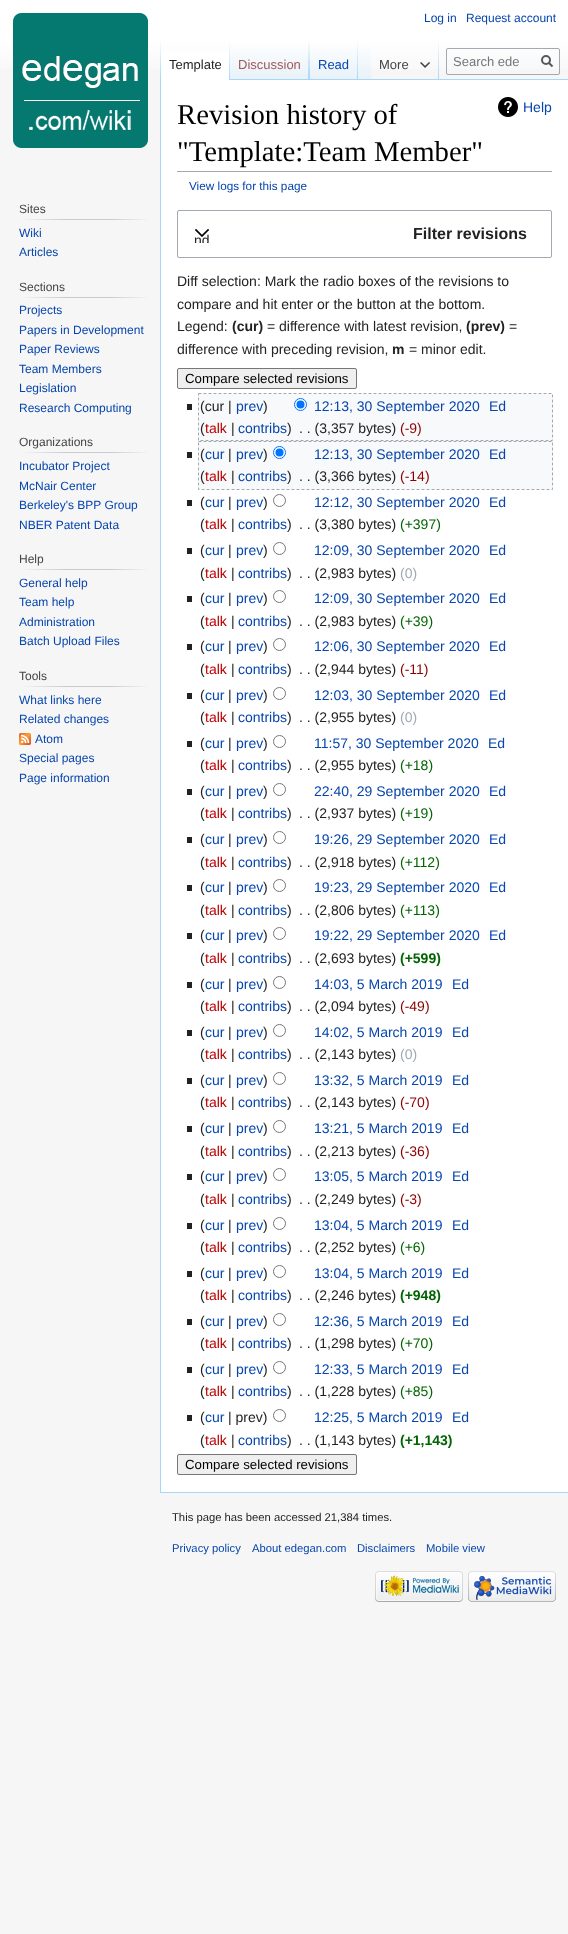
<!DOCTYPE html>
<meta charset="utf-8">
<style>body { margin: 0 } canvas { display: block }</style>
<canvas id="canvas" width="568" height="1934"></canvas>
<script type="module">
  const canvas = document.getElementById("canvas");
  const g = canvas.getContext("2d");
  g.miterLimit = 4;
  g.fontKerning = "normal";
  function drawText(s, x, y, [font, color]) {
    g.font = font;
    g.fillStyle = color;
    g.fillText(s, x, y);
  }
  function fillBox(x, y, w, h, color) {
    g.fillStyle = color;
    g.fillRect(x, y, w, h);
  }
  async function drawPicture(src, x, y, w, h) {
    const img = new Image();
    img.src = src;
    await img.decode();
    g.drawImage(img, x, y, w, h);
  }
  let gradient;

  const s1 = ["12px Liberation Sans", "#0645AD"];
  const s2 = ["13px Liberation Sans", "#222222"];
  const s3 = ["13px Liberation Sans", "#A55858"];
  const s4 = ["13px Liberation Sans", "#0645AD"];
  const s5 = ["13px Liberation Sans", "#444444"];
  const s6 = ["13px Liberation Sans", "#72777D"];
  const s7 = ["12px Liberation Sans", "#444444"];
  const s8 = ["28.75px Liberation Serif", "#000000"];
  const s9 = ["14px Liberation Sans", "#0645AD"];
  const s10 = ["11.75px Liberation Sans", "#0645AD"];
  const s11 = ["14px Liberation Sans", "#222222"];
  const s12 = ["bold 16px Liberation Sans", "#222222"];
  const s13 = ["bold 14px Liberation Sans", "#222222"];
  const s14 = ["13.25px Liberation Sans", "#000000"];
  const s15 = ["14px Liberation Sans", "#BA0000"];
  const s16 = ["14px Liberation Sans", "#8B0000"];
  const s17 = ["14px Liberation Sans", "#006400"];
  const s18 = ["14px Liberation Sans", "#A2A9B1"];
  const s19 = ["bold 14px Liberation Sans", "#006400"];
  const s20 = ["11.25px Liberation Sans", "#222222"];
  const s21 = ["11.25px Liberation Sans", "#0645AD"];

  fillBox(0, 0, 568, 1934, "#F6F6F6");
  gradient = g.createLinearGradient(284, 0, 284, 80);
  gradient.addColorStop(0.5, "#FFFFFF");
  gradient.addColorStop(1, "#F6F6F6");
  g.fillStyle = gradient;
  g.fillRect(0, 0, 568, 69);
  drawText("Log in", 424, 22, s1);
  drawText("Request account", 466, 22, s1);
  fillBox(160, 1492, 408, 1, "#A7D7F9");
  fillBox(160, 79, 1, 1414, "#A7D7F9");
  gradient = g.createLinearGradient(161, 40, 161, 80);
  gradient.addColorStop(0, "rgba(167, 215, 249, 0)");
  gradient.addColorStop(1, "#A7D7F9");
  g.fillStyle = gradient;
  g.fillRect(160, 40, 1, 40);
  fillBox(161, 51, 68, 29, "#FFFFFF");
  gradient = g.createLinearGradient(230, 40, 230, 80);
  gradient.addColorStop(0, "#FFFFFF");
  gradient.addColorStop(1, "#A7D7F9");
  g.fillStyle = gradient;
  g.fillRect(229, 40, 1, 40);
  drawText("Template", 169, 69, s2);
  gradient = g.createLinearGradient(270, 80, 270, 40);
  gradient.addColorStop(0, "#77C1F6");
  gradient.addColorStop(0.03, "#E8F2F8");
  gradient.addColorStop(1, "#FFFFFF");
  g.fillStyle = gradient;
  g.fillRect(230, 46, 79, 34);
  gradient = g.createLinearGradient(309, 40, 309, 80);
  gradient.addColorStop(0, "rgba(167, 215, 249, 0)");
  gradient.addColorStop(1, "#A7D7F9");
  g.fillStyle = gradient;
  g.fillRect(308, 40, 1, 40);
  drawText("Discussion", 238, 69, s3);
  fillBox(309, 79, 259, 1, "#A7D7F9");
  gradient = g.createLinearGradient(310, 40, 310, 80);
  gradient.addColorStop(0, "rgba(167, 215, 249, 0)");
  gradient.addColorStop(1, "#A7D7F9");
  g.fillStyle = gradient;
  g.fillRect(309, 40, 1, 40);
  gradient = g.createLinearGradient(334, 80, 334, 40);
  gradient.addColorStop(0, "#77C1F6");
  gradient.addColorStop(0.03, "#E8F2F8");
  gradient.addColorStop(1, "#FFFFFF");
  g.fillStyle = gradient;
  g.fillRect(310, 46, 48, 33);
  gradient = g.createLinearGradient(358, 40, 358, 80);
  gradient.addColorStop(0, "rgba(167, 215, 249, 0)");
  gradient.addColorStop(1, "#A7D7F9");
  g.fillStyle = gradient;
  g.fillRect(357, 40, 1, 40);
  drawText("Read", 318, 69, s4);
  gradient = g.createLinearGradient(365, 80, 365, 40);
  gradient.addColorStop(0, "#77C1F6");
  gradient.addColorStop(0.03, "#E8F2F8");
  gradient.addColorStop(1, "#FFFFFF");
  g.fillStyle = gradient;
  g.fillRect(358, 46, 13, 33);
  gradient = g.createLinearGradient(439, 40, 439, 80);
  gradient.addColorStop(0, "rgba(167, 215, 249, 0)");
  gradient.addColorStop(1, "#A7D7F9");
  g.fillStyle = gradient;
  g.fillRect(438, 40, 1, 40);
  drawText("More", 379, 69, s5);
  await drawPicture("pic1.png", 420, 62, 10, 6);
  g.beginPath();
  g.roundRect(446.5, 48.5, 113, 26, 1.5);
  g.strokeStyle = "#A2A9B1";
  g.stroke();
  drawText("Search ede", 453, 66, s6);
  g.beginPath();
  g.moveTo(552.5, 66.5);
  g.lineTo(548.5, 62.5);
  g.strokeStyle = "#54595D";
  g.lineWidth = 2;
  g.stroke();
  g.beginPath();
  g.arc(546, 60, 4, 0, Math.PI * 2);
  g.stroke();
  await drawPicture("pic2.png", 13, 13, 135, 135);
  drawText("Sites", 19, 213, s7);
  gradient = g.createLinearGradient(19, 220, 150, 220);
  gradient.addColorStop(0, "#F6F6F6");
  gradient.addColorStop(0.35, "#C8CCD1");
  gradient.addColorStop(0.7, "#C8CCD1");
  gradient.addColorStop(1, "#F6F6F6");
  g.fillStyle = gradient;
  g.fillRect(19, 219, 131, 1);
  drawText("Wiki", 19, 237, s1);
  drawText("Articles", 19, 256, s1);
  drawText("Sections", 19, 291, s7);
  gradient = g.createLinearGradient(19, 298, 150, 298);
  gradient.addColorStop(0, "#F6F6F6");
  gradient.addColorStop(0.35, "#C8CCD1");
  gradient.addColorStop(0.7, "#C8CCD1");
  gradient.addColorStop(1, "#F6F6F6");
  g.fillStyle = gradient;
  g.fillRect(19, 297, 131, 1);
  drawText("Projects", 19, 314, s1);
  drawText("Papers in Development", 19, 334, s1);
  drawText("Paper Reviews", 19, 353, s1);
  drawText("Team Members", 19, 373, s1);
  drawText("Legislation", 19, 392, s1);
  drawText("Research Computing", 19, 412, s1);
  drawText("Organizations", 19, 446, s7);
  gradient = g.createLinearGradient(19, 453, 150, 453);
  gradient.addColorStop(0, "#F6F6F6");
  gradient.addColorStop(0.35, "#C8CCD1");
  gradient.addColorStop(0.7, "#C8CCD1");
  gradient.addColorStop(1, "#F6F6F6");
  g.fillStyle = gradient;
  g.fillRect(19, 452, 131, 1);
  drawText("Incubator Project", 19, 470, s1);
  drawText("McNair Center", 19, 490, s1);
  drawText("Berkeley's BPP Group", 19, 509, s1);
  drawText("NBER Patent Data", 19, 529, s1);
  drawText("Help", 19, 563, s7);
  gradient = g.createLinearGradient(19, 570, 150, 570);
  gradient.addColorStop(0, "#F6F6F6");
  gradient.addColorStop(0.35, "#C8CCD1");
  gradient.addColorStop(0.7, "#C8CCD1");
  gradient.addColorStop(1, "#F6F6F6");
  g.fillStyle = gradient;
  g.fillRect(19, 569, 131, 1);
  drawText("General help", 19, 587, s1);
  drawText("Team help", 19, 606, s1);
  drawText("Administration", 19, 626, s1);
  drawText("Batch Upload Files", 19, 645, s1);
  drawText("Tools", 19, 680, s7);
  gradient = g.createLinearGradient(19, 687, 150, 687);
  gradient.addColorStop(0, "#F6F6F6");
  gradient.addColorStop(0.35, "#C8CCD1");
  gradient.addColorStop(0.7, "#C8CCD1");
  gradient.addColorStop(1, "#F6F6F6");
  g.fillStyle = gradient;
  g.fillRect(19, 686, 131, 1);
  drawText("What links here", 19, 704, s1);
  drawText("Related changes", 19, 723, s1);
  await drawPicture("pic3.png", 19, 733, 12, 12);
  drawText("Atom", 35, 743, s1);
  drawText("Special pages", 19, 762, s1);
  drawText("Page information", 19, 782, s1);
  fillBox(161, 80, 407, 1412, "#FFFFFF");
  fillBox(177, 171, 375, 1, "#A2A9B1");
  drawText("Revision history of", 177, 124, s8);
  drawText("\"Template:Team Member\"", 177, 161, s8);
  await drawPicture("pic4.png", 498, 97, 20, 20);
  drawText("Help", 523, 112, s9);
  drawText("View logs for this page", 189, 190, s10);
  g.beginPath();
  g.roundRect(177.5, 210.5, 374, 47, 1.5);
  g.strokeStyle = "#A2A9B1";
  g.lineWidth = 1;
  g.stroke();
  await drawPicture("pic5.png", 195, 229, 15, 8);
  g.save();
  g.beginPath();
  g.rect(194, 223, 16, 20);
  g.clip();
  drawText("nd", 194, 245, s11);
  g.restore();
  drawText("Filter revisions", 413, 239, s12);
  drawText("Diff selection: Mark the radio boxes of the revisions to", 177, 286, s11);
  drawText("compare and hit enter or the button at the bottom.", 177, 309, s11);
  drawText("Legend:", 177, 331, s11);
  drawText("(cur)", 232, 331, s13);
  drawText("= difference with latest revision,", 267, 331, s11);
  drawText("(prev)", 466, 331, s13);
  drawText("=", 509, 331, s11);
  drawText("difference with preceding revision,", 177, 354, s11);
  drawText("m", 392, 354, s13);
  drawText("= minor edit.", 409, 354, s11);
  g.fillStyle = "#EFEFEF";
  g.beginPath();
  g.roundRect(177.5, 368.5, 179, 20, 1.5);
  g.fill();
  g.strokeStyle = "#767676";
  g.stroke();
  drawText("Compare selected revisions", 185, 383, s14);
  fillBox(199, 394, 353, 46, "#F8F9FA");
  fillBox(187, 404, 5, 6, "#222222");
  drawText("(cur |", 200, 411, s11);
  drawText("prev", 236, 411, s9);
  drawText(")", 263, 411, s11);
  g.fillStyle = "#FFFFFF";
  g.beginPath();
  g.arc(300.5, 404.5, 6, 0, Math.PI * 2);
  g.fill();
  g.strokeStyle = "#0075FF";
  g.stroke();
  g.fillStyle = "#0075FF";
  g.beginPath();
  g.arc(300.5, 404.5, 4, 0, Math.PI * 2);
  g.fill();
  drawText("Ed", 489, 411, s9);
  drawText("(", 200, 433, s11);
  drawText("talk", 205, 433, s15);
  drawText("|", 231, 433, s11);
  drawText("contribs", 238, 433, s9);
  drawText(")", 287, 433, s11);
  drawText("12:13, 30 September 2020", 314, 411, s9);
  drawText(". . (3,357 bytes)", 299, 433, s11);
  drawText("(-9)", 400, 433, s16);
  g.beginPath();
  g.moveTo(198.5, 393.5);
  g.lineTo(552.5, 393.5);
  g.lineTo(552.5, 440.5);
  g.lineTo(198.5, 440.5);
  g.closePath();
  g.strokeStyle = "#A2A9B1";
  g.setLineDash([3, 2]);
  g.stroke();
  fillBox(199, 442, 353, 47, "#F8F9FA");
  fillBox(187, 452, 5, 6, "#222222");
  drawText("(", 200, 459, s11);
  drawText("cur", 205, 459, s9);
  drawText("|", 228, 459, s11);
  drawText("prev", 236, 459, s9);
  drawText(")", 263, 459, s11);
  g.fillStyle = "#FFFFFF";
  g.beginPath();
  g.arc(279.5, 452.5, 6, 0, Math.PI * 2);
  g.fill();
  g.strokeStyle = "#0075FF";
  g.setLineDash([]);
  g.stroke();
  g.fillStyle = "#0075FF";
  g.beginPath();
  g.arc(279.5, 452.5, 4, 0, Math.PI * 2);
  g.fill();
  drawText("Ed", 489, 459, s9);
  drawText("(", 200, 481, s11);
  drawText("talk", 205, 481, s15);
  drawText("|", 231, 481, s11);
  drawText("contribs", 238, 481, s9);
  drawText(")", 287, 481, s11);
  drawText("12:13, 30 September 2020", 314, 459, s9);
  drawText(". . (3,366 bytes)", 299, 481, s11);
  drawText("(-14)", 400, 481, s16);
  g.beginPath();
  g.moveTo(198.5, 441.5);
  g.lineTo(552.5, 441.5);
  g.lineTo(552.5, 489.5);
  g.lineTo(198.5, 489.5);
  g.closePath();
  g.strokeStyle = "#A2A9B1";
  g.setLineDash([3, 2]);
  g.stroke();
  fillBox(187, 500, 5, 6, "#222222");
  drawText("(", 200, 507, s11);
  drawText("cur", 205, 507, s9);
  drawText("|", 228, 507, s11);
  drawText("prev", 236, 507, s9);
  drawText(")", 263, 507, s11);
  g.beginPath();
  g.arc(279.5, 500.5, 6, 0, Math.PI * 2);
  g.strokeStyle = "#767676";
  g.setLineDash([]);
  g.stroke();
  drawText("Ed", 489, 507, s9);
  drawText("(", 200, 529, s11);
  drawText("talk", 205, 529, s15);
  drawText("|", 231, 529, s11);
  drawText("contribs", 238, 529, s9);
  drawText(")", 287, 529, s11);
  drawText("12:12, 30 September 2020", 314, 507, s9);
  drawText(". . (3,380 bytes)", 299, 529, s11);
  drawText("(+397)", 400, 529, s17);
  fillBox(187, 548, 5, 6, "#222222");
  drawText("(", 200, 555, s11);
  drawText("cur", 205, 555, s9);
  drawText("|", 228, 555, s11);
  drawText("prev", 236, 555, s9);
  drawText(")", 263, 555, s11);
  g.beginPath();
  g.arc(279.5, 548.5, 6, 0, Math.PI * 2);
  g.stroke();
  drawText("Ed", 489, 555, s9);
  drawText("(", 200, 578, s11);
  drawText("talk", 205, 578, s15);
  drawText("|", 231, 578, s11);
  drawText("contribs", 238, 578, s9);
  drawText(")", 287, 578, s11);
  drawText("12:09, 30 September 2020", 314, 555, s9);
  drawText(". . (2,983 bytes)", 299, 578, s11);
  drawText("(0)", 400, 578, s18);
  fillBox(187, 596, 5, 6, "#222222");
  drawText("(", 200, 603, s11);
  drawText("cur", 205, 603, s9);
  drawText("|", 228, 603, s11);
  drawText("prev", 236, 603, s9);
  drawText(")", 263, 603, s11);
  g.beginPath();
  g.arc(279.5, 596.5, 6, 0, Math.PI * 2);
  g.stroke();
  drawText("Ed", 489, 603, s9);
  drawText("(", 200, 626, s11);
  drawText("talk", 205, 626, s15);
  drawText("|", 231, 626, s11);
  drawText("contribs", 238, 626, s9);
  drawText(")", 287, 626, s11);
  drawText("12:09, 30 September 2020", 314, 603, s9);
  drawText(". . (2,983 bytes)", 299, 626, s11);
  drawText("(+39)", 400, 626, s17);
  fillBox(187, 644, 5, 6, "#222222");
  drawText("(", 200, 651, s11);
  drawText("cur", 205, 651, s9);
  drawText("|", 228, 651, s11);
  drawText("prev", 236, 651, s9);
  drawText(")", 263, 651, s11);
  g.beginPath();
  g.arc(279.5, 644.5, 6, 0, Math.PI * 2);
  g.stroke();
  drawText("Ed", 489, 651, s9);
  drawText("(", 200, 674, s11);
  drawText("talk", 205, 674, s15);
  drawText("|", 231, 674, s11);
  drawText("contribs", 238, 674, s9);
  drawText(")", 287, 674, s11);
  drawText("12:06, 30 September 2020", 314, 651, s9);
  drawText(". . (2,944 bytes)", 299, 674, s11);
  drawText("(-11)", 400, 674, s16);
  fillBox(187, 693, 5, 6, "#222222");
  drawText("(", 200, 700, s11);
  drawText("cur", 205, 700, s9);
  drawText("|", 228, 700, s11);
  drawText("prev", 236, 700, s9);
  drawText(")", 263, 700, s11);
  g.beginPath();
  g.arc(279.5, 693.5, 6, 0, Math.PI * 2);
  g.stroke();
  drawText("Ed", 489, 700, s9);
  drawText("(", 200, 722, s11);
  drawText("talk", 205, 722, s15);
  drawText("|", 231, 722, s11);
  drawText("contribs", 238, 722, s9);
  drawText(")", 287, 722, s11);
  drawText("12:03, 30 September 2020", 314, 700, s9);
  drawText(". . (2,955 bytes)", 299, 722, s11);
  drawText("(0)", 400, 722, s18);
  fillBox(187, 741, 5, 6, "#222222");
  drawText("(", 200, 748, s11);
  drawText("cur", 205, 748, s9);
  drawText("|", 228, 748, s11);
  drawText("prev", 236, 748, s9);
  drawText(")", 263, 748, s11);
  g.beginPath();
  g.arc(279.5, 741.5, 6, 0, Math.PI * 2);
  g.stroke();
  drawText("Ed", 488, 748, s9);
  drawText("(", 200, 770, s11);
  drawText("talk", 205, 770, s15);
  drawText("|", 231, 770, s11);
  drawText("contribs", 238, 770, s9);
  drawText(")", 287, 770, s11);
  drawText("11:57, 30 September 2020", 314, 748, s9);
  drawText(". . (2,955 bytes)", 299, 770, s11);
  drawText("(+18)", 400, 770, s17);
  fillBox(187, 789, 5, 6, "#222222");
  drawText("(", 200, 796, s11);
  drawText("cur", 205, 796, s9);
  drawText("|", 228, 796, s11);
  drawText("prev", 236, 796, s9);
  drawText(")", 263, 796, s11);
  g.beginPath();
  g.arc(279.5, 789.5, 6, 0, Math.PI * 2);
  g.stroke();
  drawText("Ed", 489, 796, s9);
  drawText("(", 200, 818, s11);
  drawText("talk", 205, 818, s15);
  drawText("|", 231, 818, s11);
  drawText("contribs", 238, 818, s9);
  drawText(")", 287, 818, s11);
  drawText("22:40, 29 September 2020", 314, 796, s9);
  drawText(". . (2,937 bytes)", 299, 818, s11);
  drawText("(+19)", 400, 818, s17);
  fillBox(187, 837, 5, 6, "#222222");
  drawText("(", 200, 844, s11);
  drawText("cur", 205, 844, s9);
  drawText("|", 228, 844, s11);
  drawText("prev", 236, 844, s9);
  drawText(")", 263, 844, s11);
  g.beginPath();
  g.arc(279.5, 837.5, 6, 0, Math.PI * 2);
  g.stroke();
  drawText("Ed", 489, 844, s9);
  drawText("(", 200, 867, s11);
  drawText("talk", 205, 867, s15);
  drawText("|", 231, 867, s11);
  drawText("contribs", 238, 867, s9);
  drawText(")", 287, 867, s11);
  drawText("19:26, 29 September 2020", 314, 844, s9);
  drawText(". . (2,918 bytes)", 299, 867, s11);
  drawText("(+112)", 400, 867, s17);
  fillBox(187, 885, 5, 6, "#222222");
  drawText("(", 200, 892, s11);
  drawText("cur", 205, 892, s9);
  drawText("|", 228, 892, s11);
  drawText("prev", 236, 892, s9);
  drawText(")", 263, 892, s11);
  g.beginPath();
  g.arc(279.5, 885.5, 6, 0, Math.PI * 2);
  g.stroke();
  drawText("Ed", 489, 892, s9);
  drawText("(", 200, 915, s11);
  drawText("talk", 205, 915, s15);
  drawText("|", 231, 915, s11);
  drawText("contribs", 238, 915, s9);
  drawText(")", 287, 915, s11);
  drawText("19:23, 29 September 2020", 314, 892, s9);
  drawText(". . (2,806 bytes)", 299, 915, s11);
  drawText("(+113)", 400, 915, s17);
  fillBox(187, 933, 5, 6, "#222222");
  drawText("(", 200, 940, s11);
  drawText("cur", 205, 940, s9);
  drawText("|", 228, 940, s11);
  drawText("prev", 236, 940, s9);
  drawText(")", 263, 940, s11);
  g.beginPath();
  g.arc(279.5, 933.5, 6, 0, Math.PI * 2);
  g.stroke();
  drawText("Ed", 489, 940, s9);
  drawText("(", 200, 963, s11);
  drawText("talk", 205, 963, s15);
  drawText("|", 231, 963, s11);
  drawText("contribs", 238, 963, s9);
  drawText(")", 287, 963, s11);
  drawText("19:22, 29 September 2020", 314, 940, s9);
  drawText(". . (2,693 bytes)", 299, 963, s11);
  drawText("(+599)", 400, 963, s19);
  fillBox(187, 982, 5, 6, "#222222");
  drawText("(", 200, 989, s11);
  drawText("cur", 205, 989, s9);
  drawText("|", 228, 989, s11);
  drawText("prev", 236, 989, s9);
  drawText(")", 263, 989, s11);
  g.beginPath();
  g.arc(279.5, 982.5, 6, 0, Math.PI * 2);
  g.stroke();
  drawText("Ed", 452, 989, s9);
  drawText("(", 200, 1011, s11);
  drawText("talk", 205, 1011, s15);
  drawText("|", 231, 1011, s11);
  drawText("contribs", 238, 1011, s9);
  drawText(")", 287, 1011, s11);
  drawText("14:03, 5 March 2019", 314, 989, s9);
  drawText(". . (2,094 bytes)", 299, 1011, s11);
  drawText("(-49)", 400, 1011, s16);
  fillBox(187, 1030, 5, 6, "#222222");
  drawText("(", 200, 1037, s11);
  drawText("cur", 205, 1037, s9);
  drawText("|", 228, 1037, s11);
  drawText("prev", 236, 1037, s9);
  drawText(")", 263, 1037, s11);
  g.beginPath();
  g.arc(279.5, 1030.5, 6, 0, Math.PI * 2);
  g.stroke();
  drawText("Ed", 452, 1037, s9);
  drawText("(", 200, 1059, s11);
  drawText("talk", 205, 1059, s15);
  drawText("|", 231, 1059, s11);
  drawText("contribs", 238, 1059, s9);
  drawText(")", 287, 1059, s11);
  drawText("14:02, 5 March 2019", 314, 1037, s9);
  drawText(". . (2,143 bytes)", 299, 1059, s11);
  drawText("(0)", 400, 1059, s18);
  fillBox(187, 1078, 5, 6, "#222222");
  drawText("(", 200, 1085, s11);
  drawText("cur", 205, 1085, s9);
  drawText("|", 228, 1085, s11);
  drawText("prev", 236, 1085, s9);
  drawText(")", 263, 1085, s11);
  g.beginPath();
  g.arc(279.5, 1078.5, 6, 0, Math.PI * 2);
  g.stroke();
  drawText("Ed", 452, 1085, s9);
  drawText("(", 200, 1107, s11);
  drawText("talk", 205, 1107, s15);
  drawText("|", 231, 1107, s11);
  drawText("contribs", 238, 1107, s9);
  drawText(")", 287, 1107, s11);
  drawText("13:32, 5 March 2019", 314, 1085, s9);
  drawText(". . (2,143 bytes)", 299, 1107, s11);
  drawText("(-70)", 400, 1107, s16);
  fillBox(187, 1126, 5, 6, "#222222");
  drawText("(", 200, 1133, s11);
  drawText("cur", 205, 1133, s9);
  drawText("|", 228, 1133, s11);
  drawText("prev", 236, 1133, s9);
  drawText(")", 263, 1133, s11);
  g.beginPath();
  g.arc(279.5, 1126.5, 6, 0, Math.PI * 2);
  g.stroke();
  drawText("Ed", 452, 1133, s9);
  drawText("(", 200, 1156, s11);
  drawText("talk", 205, 1156, s15);
  drawText("|", 231, 1156, s11);
  drawText("contribs", 238, 1156, s9);
  drawText(")", 287, 1156, s11);
  drawText("13:21, 5 March 2019", 314, 1133, s9);
  drawText(". . (2,213 bytes)", 299, 1156, s11);
  drawText("(-36)", 400, 1156, s16);
  fillBox(187, 1174, 5, 6, "#222222");
  drawText("(", 200, 1181, s11);
  drawText("cur", 205, 1181, s9);
  drawText("|", 228, 1181, s11);
  drawText("prev", 236, 1181, s9);
  drawText(")", 263, 1181, s11);
  g.beginPath();
  g.arc(279.5, 1174.5, 6, 0, Math.PI * 2);
  g.stroke();
  drawText("Ed", 452, 1181, s9);
  drawText("(", 200, 1204, s11);
  drawText("talk", 205, 1204, s15);
  drawText("|", 231, 1204, s11);
  drawText("contribs", 238, 1204, s9);
  drawText(")", 287, 1204, s11);
  drawText("13:05, 5 March 2019", 314, 1181, s9);
  drawText(". . (2,249 bytes)", 299, 1204, s11);
  drawText("(-3)", 400, 1204, s16);
  fillBox(187, 1223, 5, 6, "#222222");
  drawText("(", 200, 1230, s11);
  drawText("cur", 205, 1230, s9);
  drawText("|", 228, 1230, s11);
  drawText("prev", 236, 1230, s9);
  drawText(")", 263, 1230, s11);
  g.beginPath();
  g.arc(279.5, 1223.5, 6, 0, Math.PI * 2);
  g.stroke();
  drawText("Ed", 452, 1230, s9);
  drawText("(", 200, 1252, s11);
  drawText("talk", 205, 1252, s15);
  drawText("|", 231, 1252, s11);
  drawText("contribs", 238, 1252, s9);
  drawText(")", 287, 1252, s11);
  drawText("13:04, 5 March 2019", 314, 1230, s9);
  drawText(". . (2,252 bytes)", 299, 1252, s11);
  drawText("(+6)", 400, 1252, s17);
  fillBox(187, 1271, 5, 6, "#222222");
  drawText("(", 200, 1278, s11);
  drawText("cur", 205, 1278, s9);
  drawText("|", 228, 1278, s11);
  drawText("prev", 236, 1278, s9);
  drawText(")", 263, 1278, s11);
  g.beginPath();
  g.arc(279.5, 1271.5, 6, 0, Math.PI * 2);
  g.stroke();
  drawText("Ed", 452, 1278, s9);
  drawText("(", 200, 1300, s11);
  drawText("talk", 205, 1300, s15);
  drawText("|", 231, 1300, s11);
  drawText("contribs", 238, 1300, s9);
  drawText(")", 287, 1300, s11);
  drawText("13:04, 5 March 2019", 314, 1278, s9);
  drawText(". . (2,246 bytes)", 299, 1300, s11);
  drawText("(+948)", 400, 1300, s19);
  fillBox(187, 1319, 5, 6, "#222222");
  drawText("(", 200, 1326, s11);
  drawText("cur", 205, 1326, s9);
  drawText("|", 228, 1326, s11);
  drawText("prev", 236, 1326, s9);
  drawText(")", 263, 1326, s11);
  g.beginPath();
  g.arc(279.5, 1319.5, 6, 0, Math.PI * 2);
  g.stroke();
  drawText("Ed", 452, 1326, s9);
  drawText("(", 200, 1348, s11);
  drawText("talk", 205, 1348, s15);
  drawText("|", 231, 1348, s11);
  drawText("contribs", 238, 1348, s9);
  drawText(")", 287, 1348, s11);
  drawText("12:36, 5 March 2019", 314, 1326, s9);
  drawText(". . (1,298 bytes)", 299, 1348, s11);
  drawText("(+70)", 400, 1348, s17);
  fillBox(187, 1367, 5, 6, "#222222");
  drawText("(", 200, 1374, s11);
  drawText("cur", 205, 1374, s9);
  drawText("|", 228, 1374, s11);
  drawText("prev", 236, 1374, s9);
  drawText(")", 263, 1374, s11);
  g.beginPath();
  g.arc(279.5, 1367.5, 6, 0, Math.PI * 2);
  g.stroke();
  drawText("Ed", 452, 1374, s9);
  drawText("(", 200, 1396, s11);
  drawText("talk", 205, 1396, s15);
  drawText("|", 231, 1396, s11);
  drawText("contribs", 238, 1396, s9);
  drawText(")", 287, 1396, s11);
  drawText("12:33, 5 March 2019", 314, 1374, s9);
  drawText(". . (1,228 bytes)", 299, 1396, s11);
  drawText("(+85)", 400, 1396, s17);
  fillBox(187, 1415, 5, 6, "#222222");
  drawText("(", 200, 1422, s11);
  drawText("cur", 205, 1422, s9);
  drawText("| prev)", 228, 1422, s11);
  g.beginPath();
  g.arc(279.5, 1415.5, 6, 0, Math.PI * 2);
  g.stroke();
  drawText("Ed", 452, 1422, s9);
  drawText("(", 200, 1445, s11);
  drawText("talk", 205, 1445, s15);
  drawText("|", 231, 1445, s11);
  drawText("contribs", 238, 1445, s9);
  drawText(")", 287, 1445, s11);
  drawText("12:25, 5 March 2019", 314, 1422, s9);
  drawText(". . (1,143 bytes)", 299, 1445, s11);
  drawText("(+1,143)", 400, 1445, s19);
  g.fillStyle = "#EFEFEF";
  g.beginPath();
  g.roundRect(177.5, 1454.5, 179, 20, 1.5);
  g.fill();
  g.stroke();
  drawText("Compare selected revisions", 185, 1469, s14);
  drawText("This page has been accessed 21,384 times.", 172, 1521, s20);
  drawText("Privacy policy", 172, 1552, s21);
  drawText("About edegan.com", 252, 1552, s21);
  drawText("Disclaimers", 357, 1552, s21);
  drawText("Mobile view", 426, 1552, s21);
  await drawPicture("pic6.png", 375, 1571, 88, 31);
  await drawPicture("pic7.png", 468, 1571, 88, 31);
</script>
